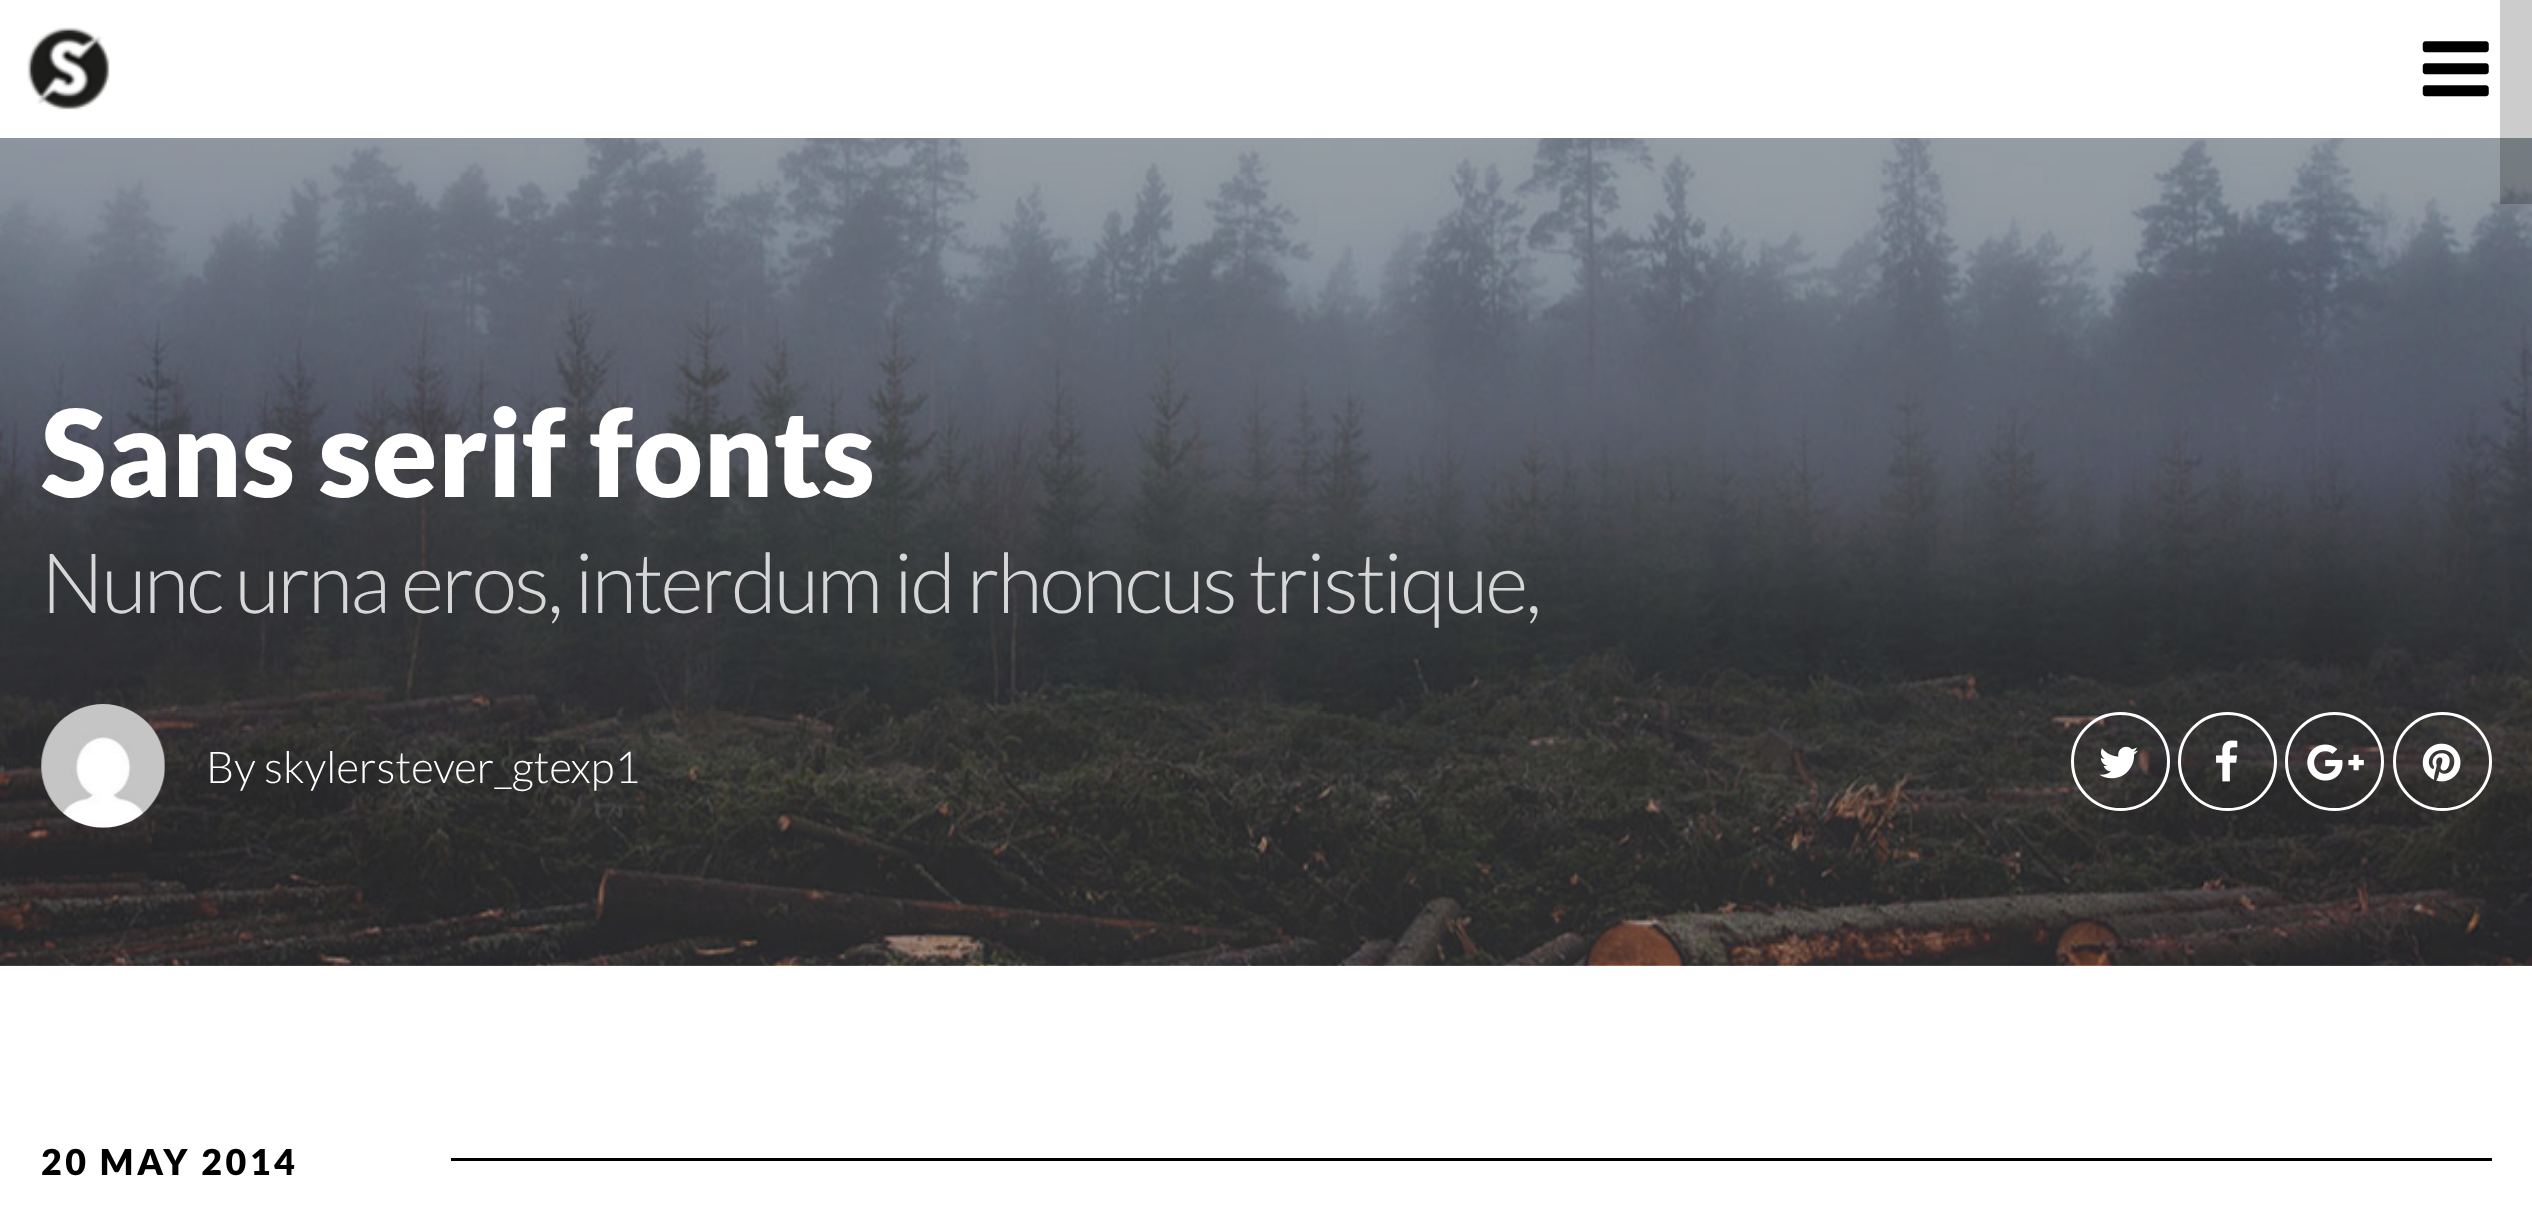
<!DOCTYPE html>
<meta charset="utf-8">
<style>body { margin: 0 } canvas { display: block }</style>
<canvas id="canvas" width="2532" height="1207"></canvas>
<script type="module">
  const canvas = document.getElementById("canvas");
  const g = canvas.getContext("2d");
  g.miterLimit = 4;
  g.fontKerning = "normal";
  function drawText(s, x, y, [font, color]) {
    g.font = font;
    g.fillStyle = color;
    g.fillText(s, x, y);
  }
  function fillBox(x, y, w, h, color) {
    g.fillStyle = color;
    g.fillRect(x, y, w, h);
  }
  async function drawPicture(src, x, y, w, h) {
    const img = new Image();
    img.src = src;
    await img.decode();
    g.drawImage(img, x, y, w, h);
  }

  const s1 = ["900 121px Lato", "#FFFFFF"];
  const s2 = ["300 83.5px Lato", "#D7D7D8"];
  const s3 = ["300 44px Lato", "#FFFFFF"];
  const s4 = ["900 35.75px Lato", "#000000"];

  fillBox(0, 0, 2532, 1207, "#FFFFFF");
  await drawPicture("pic1.png", 27, 27, 83, 83);
  await drawPicture("pic2.png", 2422, 41, 67, 56);
  await drawPicture("pic3.png", 0, 138, 2532, 828);
  fillBox(2500, 0, 32, 204, "rgba(0, 0, 0, 0.2)");
  drawText("Sans serif fonts", 41, 497, s1);
  g.letterSpacing = "-2.75px";
  drawText("Nunc urna eros, interdum id rhoncus tristique,", 41, 613, s2);
  await drawPicture("pic4.png", 41, 704, 124, 124);
  g.letterSpacing = "0px";
  drawText("By skylerstever_gtexp1", 206, 783, s3);
  g.beginPath();
  g.arc(2120.5, 761.5, 48, 0, Math.PI * 2);
  g.strokeStyle = "#FFFFFF";
  g.lineWidth = 3;
  g.stroke();
  await drawPicture("pic5.png", 2099, 746, 39, 33);
  g.beginPath();
  g.arc(2227.5, 761.5, 48, 0, Math.PI * 2);
  g.stroke();
  await drawPicture("pic6.png", 2216, 740, 22, 42);
  g.beginPath();
  g.arc(2334.5, 761.5, 48, 0, Math.PI * 2);
  g.stroke();
  await drawPicture("pic7.png", 2307, 744, 57, 37);
  g.beginPath();
  g.arc(2442.5, 761.5, 48, 0, Math.PI * 2);
  g.stroke();
  await drawPicture("pic8.png", 2422, 743, 39, 39);
  g.letterSpacing = "3.5px";
  drawText("20 MAY 2014", 41, 1175, s4);
  fillBox(451, 1158, 2041, 3, "#000000");
</script>
